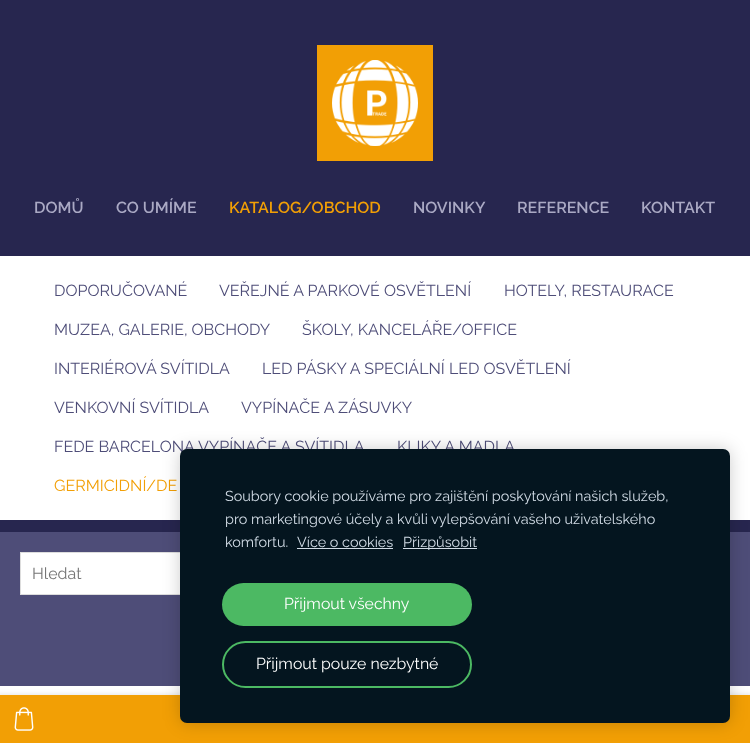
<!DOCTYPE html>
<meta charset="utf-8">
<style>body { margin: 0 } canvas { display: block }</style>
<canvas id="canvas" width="750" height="743"></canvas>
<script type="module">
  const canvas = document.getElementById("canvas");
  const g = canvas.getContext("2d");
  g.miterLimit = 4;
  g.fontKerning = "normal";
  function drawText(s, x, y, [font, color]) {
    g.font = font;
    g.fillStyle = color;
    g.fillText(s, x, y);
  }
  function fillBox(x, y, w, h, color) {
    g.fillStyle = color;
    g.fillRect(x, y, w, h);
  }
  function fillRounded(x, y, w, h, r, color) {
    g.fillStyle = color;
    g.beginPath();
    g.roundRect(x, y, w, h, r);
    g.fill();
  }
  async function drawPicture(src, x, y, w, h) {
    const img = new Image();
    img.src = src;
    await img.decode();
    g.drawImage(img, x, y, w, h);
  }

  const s1 = ["600 16px Raleway", "#AAA9C4"];
  const s2 = ["600 16px Raleway", "#F29F05"];
  const s3 = ["16px Raleway", "#4E4D78"];
  const s4 = ["16px Raleway", "#F29F05"];
  const s5 = ["16px Raleway", "#757575"];
  const s6 = ["14.4px Raleway", "#D2DCE6"];
  const s7 = ["15.8px Raleway", "#FFFFFF"];

  fillBox(0, 0, 750, 743, "#27264F");
  fillBox(317, 45, 116, 116, "#F29F05");
  await drawPicture("pic1.png", 332, 60, 86, 86);
  drawText("DOMŮ", 34, 213, s1);
  drawText("CO UMÍME", 116, 213, s1);
  drawText("KATALOG/OBCHOD", 229, 213, s2);
  drawText("NOVINKY", 413, 213, s1);
  drawText("REFERENCE", 517, 213, s1);
  drawText("KONTAKT", 641, 213, s1);
  fillBox(0, 256, 750, 439, "#FFFFFF");
  fillBox(0, 520, 750, 12, "#27264F");
  drawText("DOPORUČOVANÉ", 54, 296, s3);
  drawText("VEŘEJNÉ A PARKOVÉ OSVĚTLENÍ", 219, 296, s3);
  drawText("HOTELY, RESTAURACE", 504, 296, s3);
  drawText("MUZEA, GALERIE, OBCHODY", 54, 335, s3);
  drawText("ŠKOLY, KANCELÁŘE/OFFICE", 302, 335, s3);
  drawText("INTERIÉROVÁ SVÍTIDLA", 54, 374, s3);
  drawText("LED PÁSKY A SPECIÁLNÍ LED OSVĚTLENÍ", 262, 374, s3);
  drawText("VENKOVNÍ SVÍTIDLA", 54, 413, s3);
  drawText("VYPÍNAČE A ZÁSUVKY", 241, 413, s3);
  drawText("FEDE BARCELONA VYPÍNAČE A SVÍTIDLA", 54, 452, s3);
  drawText("KLIKY A MADLA", 397, 452, s3);
  drawText("GERMICIDNÍ/DE", 54, 491, s4);
  fillBox(0, 532, 750, 154, "#4E4D78");
  fillBox(21, 553, 159, 41, "#FFFFFF");
  g.strokeStyle = "#DDDDDD";
  g.strokeRect(20.5, 552.5, 709, 42);
  drawText("Hledat", 32, 579, s5);
  g.fillStyle = "rgba(0, 0, 0, 0.1)";
  g.filter = "blur(2.5px)";
  g.beginPath();
  g.rect(-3, 694, 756, 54);
  g.fill();
  g.filter = "none";
  fillBox(0, 695, 750, 48, "#F29F05");
  await drawPicture("pic2.png", 14, 707, 20, 24);
  g.fillStyle = "rgba(0, 0, 0, 0.2)";
  g.filter = "blur(8.5px)";
  g.beginPath();
  g.roundRect(180, 449, 550, 274, 7);
  g.fill();
  g.filter = "none";
  fillRounded(180, 449, 550, 274, 7, "#04151F");
  drawText("Soubory cookie používáme pro zajištění poskytování našich služeb,", 225, 501, s6);
  drawText("pro marketingové účely a kvůli vylepšování vašeho uživatelského", 225, 524, s6);
  drawText("komfortu.", 225, 547, s6);
  drawText("Více o cookies", 297, 547, s6);
  fillBox(297, 548, 96, 1, "#D2DCE6");
  fillBox(403, 548, 74, 1, "#D2DCE6");
  drawText("Přizpůsobit", 403, 547, s6);
  fillRounded(222, 583, 250, 43, 21.5, "#4CB963");
  drawText("Přijmout všechny", 284, 609, s7);
  g.beginPath();
  g.roundRect(223, 642, 248, 45, 22.5);
  g.strokeStyle = "#4CB963";
  g.lineWidth = 2;
  g.stroke();
  drawText("Přijmout pouze nezbytné", 256, 669, s7);
</script>
